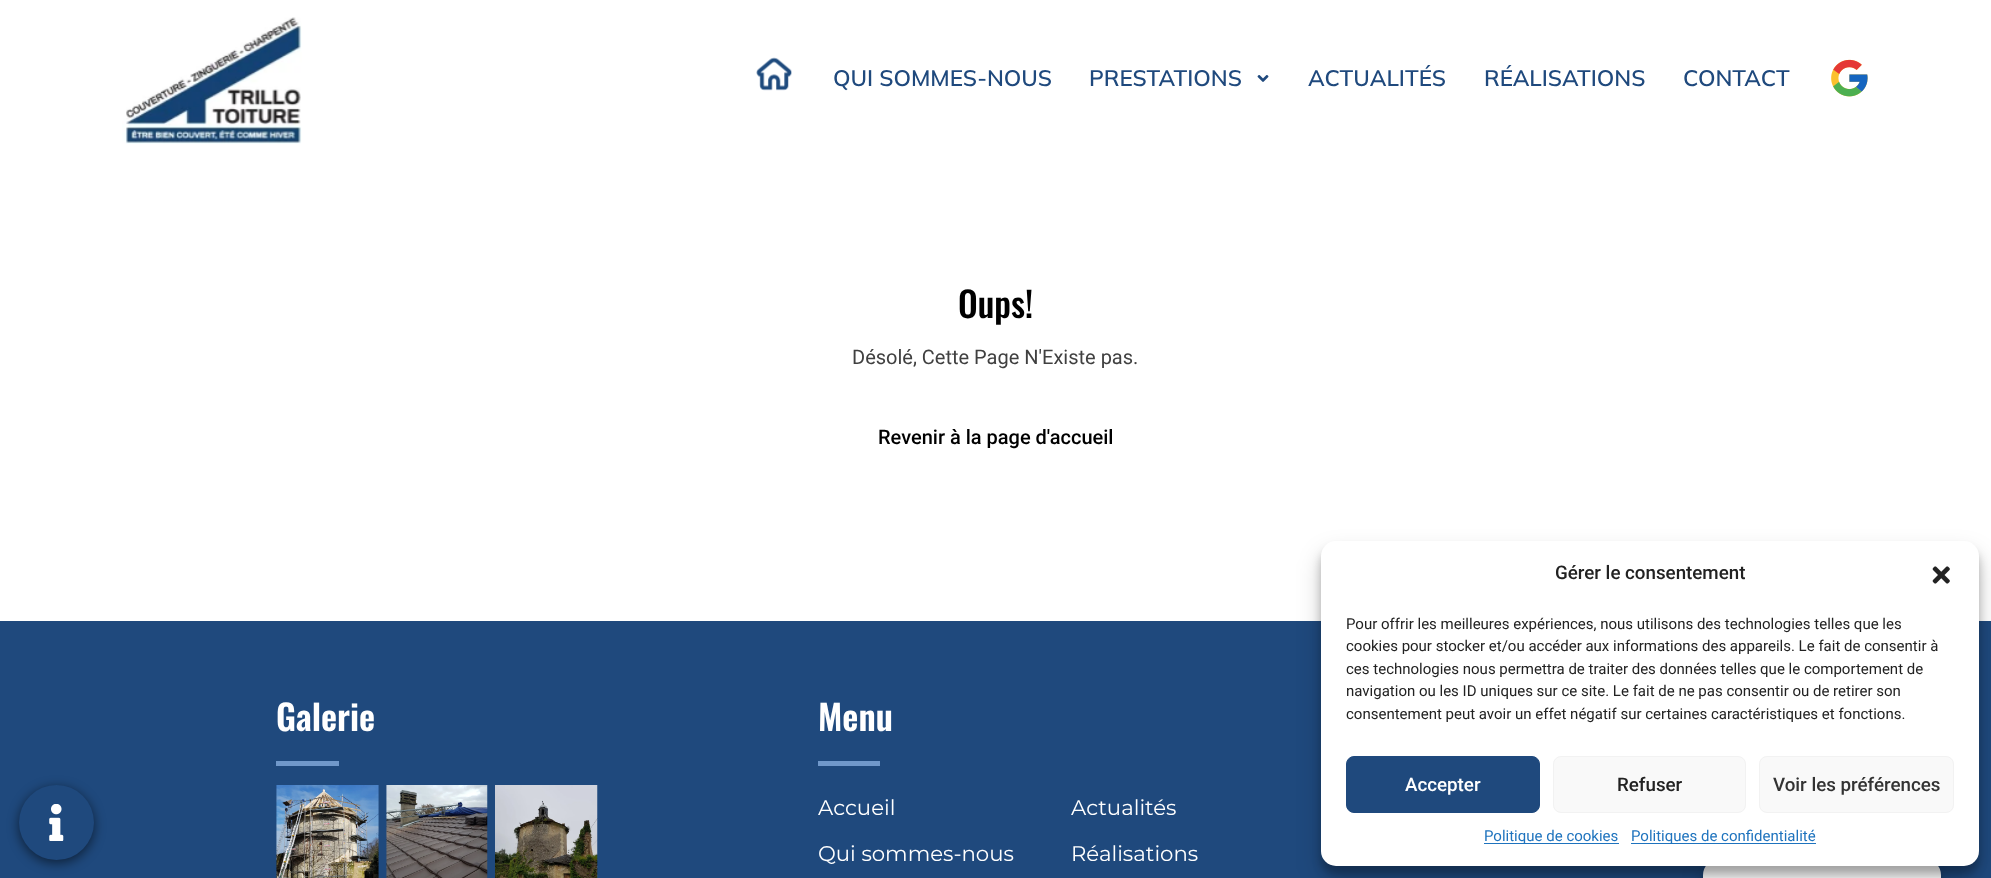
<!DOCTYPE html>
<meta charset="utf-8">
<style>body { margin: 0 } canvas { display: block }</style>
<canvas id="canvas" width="1991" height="878"></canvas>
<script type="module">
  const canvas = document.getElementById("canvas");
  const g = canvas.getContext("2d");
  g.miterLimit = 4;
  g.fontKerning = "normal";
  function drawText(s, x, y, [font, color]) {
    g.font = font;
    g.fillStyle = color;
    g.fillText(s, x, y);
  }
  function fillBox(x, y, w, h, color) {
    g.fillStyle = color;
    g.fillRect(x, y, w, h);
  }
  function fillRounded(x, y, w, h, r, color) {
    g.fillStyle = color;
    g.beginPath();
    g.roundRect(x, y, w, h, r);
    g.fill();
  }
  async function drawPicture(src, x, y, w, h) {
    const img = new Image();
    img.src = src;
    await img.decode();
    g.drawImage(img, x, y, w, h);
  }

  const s1 = ["600 22.5px Mulish", "#1F497D"];
  const s2 = ["500 35px Oswald", "#000000"];
  const s3 = ["20px Roboto", "#404040"];
  const s4 = ["500 20px Roboto", "#000000"];
  const s5 = ["600 35px Oswald", "#FFFFFF"];
  const s6 = ["21.25px Montserrat", "#FFFFFF"];
  const s7 = ["500 18.75px Roboto", "#222222"];
  const s8 = ["15px Roboto", "#222222"];
  const s9 = ["500 18.75px Roboto", "#FFFFFF"];
  const s10 = ["500 18.75px Roboto", "#333333"];
  const s11 = ["15px Roboto", "#1E73BE"];

  fillBox(0, 0, 1991, 878, "#FFFFFF");
  await drawPicture("pic1.png", 122, 17, 180, 127);
  await drawPicture("pic2.png", 756, 57, 36, 34);
  drawText("QUI SOMMES-NOUS", 833, 86, s1);
  drawText("PRESTATIONS", 1089, 86, s1);
  await drawPicture("pic3.png", 1257, 75, 12, 7);
  drawText("ACTUALITÉS", 1308, 86, s1);
  drawText("RÉALISATIONS", 1484, 86, s1);
  drawText("CONTACT", 1683, 86, s1);
  await drawPicture("pic4.png", 1831, 59, 37, 38);
  drawText("Oups!", 958, 318, s2);
  drawText("Désolé, Cette Page N'Existe pas.", 852, 364, s3);
  drawText("Revenir à la page d'accueil", 878, 444, s4);
  fillBox(0, 621, 1991, 257, "#1F497D");
  g.fillStyle = "rgba(0, 0, 0, 0.56)";
  g.filter = "blur(6px)";
  g.beginPath();
  g.roundRect(19, 788, 75, 75, 37.5);
  g.fill();
  g.filter = "none";
  g.fillStyle = "#1F497D";
  g.beginPath();
  g.arc(56.5, 822.5, 37.5, 0, Math.PI * 2);
  g.fill();
  await drawPicture("pic5.png", 49, 804, 15, 37);
  drawText("Galerie", 276, 731, s5);
  fillBox(276, 761, 63, 5, "#7098CA");
  await drawPicture("pic6.png", 276, 785, 103, 93);
  await drawPicture("pic7.png", 386, 785, 102, 93);
  await drawPicture("pic8.png", 495, 785, 103, 93);
  drawText("Menu", 818, 731, s5);
  fillBox(818, 761, 62, 5, "#7098CA");
  drawText("Accueil", 818, 815, s6);
  drawText("Actualités", 1071, 815, s6);
  drawText("Qui sommes-nous", 818, 861, s6);
  drawText("Réalisations", 1071, 861, s6);
  g.fillStyle = "rgba(0, 0, 0, 0.23)";
  g.filter = "blur(4px)";
  g.beginPath();
  g.roundRect(1703, 868, 238, 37, 15);
  g.fill();
  g.filter = "none";
  g.fillStyle = "rgba(0, 0, 0, 0.19)";
  g.filter = "blur(12.5px)";
  g.beginPath();
  g.roundRect(1703, 873, 238, 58, 15);
  g.fill();
  g.filter = "none";
  g.fillStyle = "#FFFFFF";
  g.beginPath();
  g.moveTo(1718, 860);
  g.lineTo(1926, 860);
  g.bezierCurveTo(1934.5, 860, 1941, 866.5, 1941, 875);
  g.lineTo(1941, 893);
  g.lineTo(1703, 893);
  g.lineTo(1703, 875);
  g.bezierCurveTo(1703, 866.5, 1709.5, 860, 1718, 860);
  g.closePath();
  g.fill();
  g.fillStyle = "rgba(0, 0, 0, 0.23)";
  g.filter = "blur(4px)";
  g.beginPath();
  g.roundRect(1321, 549, 658, 325, 15);
  g.fill();
  g.filter = "none";
  g.fillStyle = "rgba(0, 0, 0, 0.19)";
  g.filter = "blur(12.5px)";
  g.beginPath();
  g.roundRect(1321, 554, 658, 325, 15);
  g.fill();
  g.filter = "none";
  fillRounded(1321, 541, 658, 325, 15, "#FFFFFF");
  drawText("Gérer le consentement", 1555, 579, s7);
  await drawPicture("pic9.png", 1932, 566, 18, 18);
  drawText("Pour offrir les meilleures expériences, nous utilisons des technologies telles que les", 1346, 629, s8);
  drawText("cookies pour stocker et/ou accéder aux informations des appareils. Le fait de consentir à", 1346, 651, s8);
  drawText("ces technologies nous permettra de traiter des données telles que le comportement de", 1346, 674, s8);
  drawText("navigation ou les ID uniques sur ce site. Le fait de ne pas consentir ou de retirer son", 1346, 696, s8);
  drawText("consentement peut avoir un effet négatif sur certaines caractéristiques et fonctions.", 1346, 719, s8);
  g.fillStyle = "#1F497D";
  g.beginPath();
  g.roundRect(1346.5, 756.5, 193, 56, 7.5);
  g.fill();
  g.strokeStyle = "#1F497D";
  g.stroke();
  drawText("Accepter", 1405, 791, s9);
  g.fillStyle = "#F9F9F9";
  g.beginPath();
  g.roundRect(1553.5, 756.5, 192, 56, 7.5);
  g.fill();
  g.strokeStyle = "#F2F2F2";
  g.stroke();
  drawText("Refuser", 1617, 791, s7);
  g.fillStyle = "#F9F9F9";
  g.beginPath();
  g.roundRect(1759.5, 756.5, 194, 56, 7.5);
  g.fill();
  g.stroke();
  drawText("Voir les préférences", 1773, 791, s10);
  fillBox(1484, 843, 135, 1, "#1E73BE");
  drawText("Politique de cookies", 1484, 841, s11);
  fillBox(1631, 843, 185, 1, "#1E73BE");
  drawText("Politiques de confidentialité", 1631, 841, s11);
</script>
